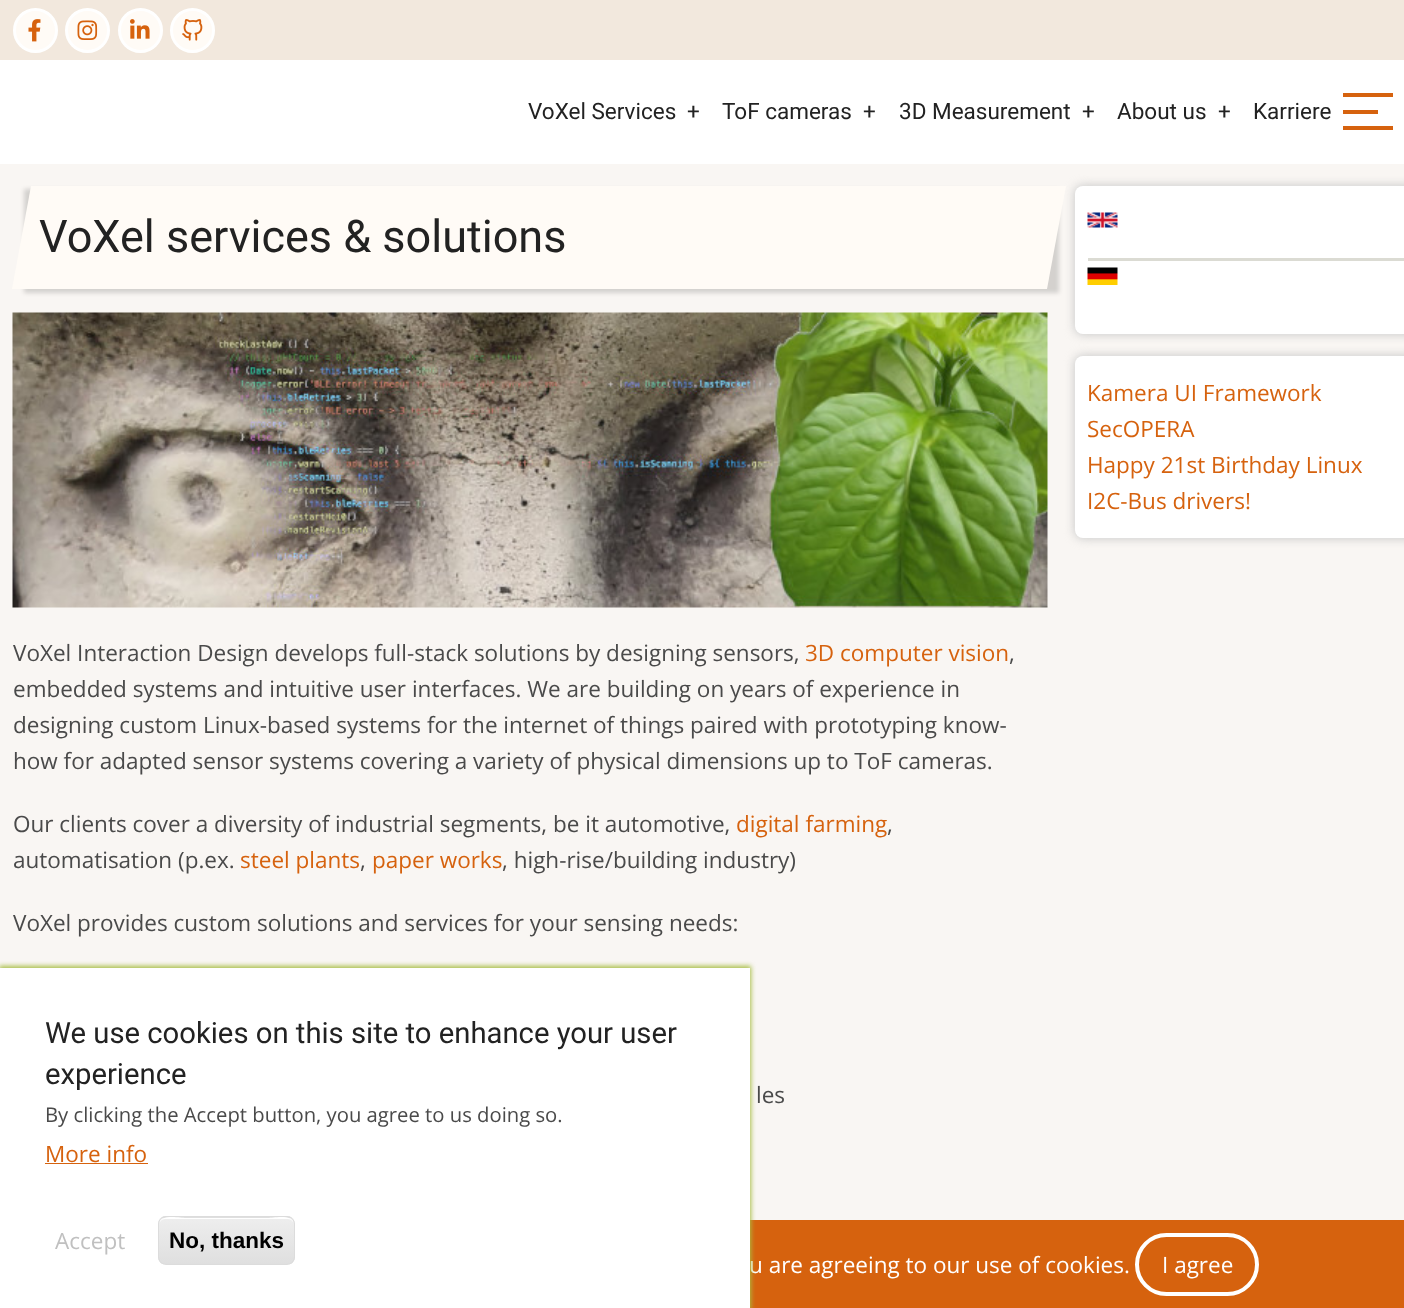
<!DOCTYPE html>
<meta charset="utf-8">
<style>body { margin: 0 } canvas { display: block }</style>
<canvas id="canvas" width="1404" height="1308"></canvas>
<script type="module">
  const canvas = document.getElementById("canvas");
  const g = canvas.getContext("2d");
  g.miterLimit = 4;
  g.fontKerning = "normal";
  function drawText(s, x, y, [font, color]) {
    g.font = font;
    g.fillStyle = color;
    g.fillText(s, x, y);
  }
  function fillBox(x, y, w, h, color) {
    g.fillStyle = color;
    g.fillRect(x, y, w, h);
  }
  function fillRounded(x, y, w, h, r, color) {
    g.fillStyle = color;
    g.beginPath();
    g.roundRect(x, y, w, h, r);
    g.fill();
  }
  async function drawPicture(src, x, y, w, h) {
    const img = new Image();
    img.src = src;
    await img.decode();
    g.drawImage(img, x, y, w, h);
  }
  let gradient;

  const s1 = ["22.5px Roboto", "#222222"];
  const s2 = ["45px Roboto", "#222222"];
  const s3 = ["22.5px Open Sans", "#4A4A4A"];
  const s4 = ["22.5px Open Sans", "#D6620E"];
  const s5 = ["22.5px Open Sans", "#FFFFFF"];
  const s6 = ["29.25px Roboto", "#222222"];
  const s7 = ["20.25px Open Sans", "#4A4A4A"];
  const s8 = ["22.5px Open Sans", "#C0C0C0"];
  const s9 = ["bold 22.5px Liberation Sans", "#000000"];

  fillBox(0, 0, 1404, 1308, "#F9F6F3");
  fillBox(0, 0, 1404, 60, "#F2E8DD");
  g.fillStyle = "#FFFBF6";
  g.beginPath();
  g.arc(35.5, 30.5, 21, 0, Math.PI * 2);
  g.fill();
  g.strokeStyle = "#FFFFFF";
  g.lineWidth = 3;
  g.stroke();
  await drawPicture("pic1.png", 28, 19, 13, 23);
  g.beginPath();
  g.arc(87.5, 30.5, 21, 0, Math.PI * 2);
  g.fill();
  g.stroke();
  await drawPicture("pic2.png", 77, 20, 21, 20);
  g.beginPath();
  g.arc(140.5, 30.5, 21, 0, Math.PI * 2);
  g.fill();
  g.stroke();
  await drawPicture("pic3.png", 130, 19, 20, 20);
  g.beginPath();
  g.arc(192.5, 30.5, 21, 0, Math.PI * 2);
  g.fill();
  g.stroke();
  await drawPicture("pic4.png", 182, 19, 21, 22);
  fillBox(0, 60, 1404, 104, "#FFFFFF");
  drawText("VoXel Services", 528, 119, s1);
  drawText("+", 687, 119, s1);
  drawText("ToF cameras", 722, 119, s1);
  drawText("+", 863, 119, s1);
  drawText("3D Measurement", 899, 119, s1);
  drawText("+", 1082, 119, s1);
  drawText("About us", 1117, 119, s1);
  drawText("+", 1218, 119, s1);
  drawText("Karriere", 1253, 119, s1);
  fillBox(1343, 93, 50, 4, "#D6620E");
  fillBox(1343, 110, 35, 4, "#D6620E");
  fillBox(1343, 126, 50, 4, "#D6620E");
  g.fillStyle = "rgba(0, 0, 0, 0.15)";
  g.filter = "blur(2px)";
  g.beginPath();
  g.rect(24, 189, 1035, 104);
  g.fill();
  g.filter = "none";
  g.fillStyle = "#CCCCCC";
  g.filter = "blur(5px)";
  g.beginPath();
  g.roundRect(1074, 185, 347, 150, 9);
  g.fill();
  g.filter = "none";
  g.fillStyle = "#FFFBF6";
  g.beginPath();
  g.moveTo(31, 186);
  g.lineTo(1066, 186);
  g.lineTo(1047, 289);
  g.lineTo(12, 289);
  g.closePath();
  g.fill();
  drawText("VoXel services & solutions", 39, 252, s2);
  await drawPicture("pic5.png", 12, 312, 1036, 296);
  drawText("VoXel Interaction Design develops full-stack solutions by designing sensors,", 13, 661, s3);
  drawText("3D computer vision", 805, 661, s4);
  drawText(",", 1009, 661, s3);
  drawText("embedded systems and intuitive user interfaces. We are building on years of experience in", 13, 697, s3);
  drawText("designing custom Linux-based systems for the internet of things paired with prototyping know-", 13, 733, s3);
  drawText("how for adapted sensor systems covering a variety of physical dimensions up to ToF cameras.", 13, 769, s3);
  drawText("Our clients cover a diversity of industrial segments, be it automotive,", 13, 832, s3);
  drawText("digital farming", 736, 832, s4);
  drawText(",", 887, 832, s3);
  drawText("automatisation (p.ex.", 13, 868, s3);
  drawText("steel plants", 240, 868, s4);
  drawText(",", 360, 868, s3);
  drawText("paper works", 372, 868, s4);
  drawText(", high-rise/building industry)", 502, 868, s3);
  drawText("VoXel provides custom solutions and services for your sensing needs:", 13, 931, s3);
  drawText("les", 756, 1103, s3);
  fillRounded(1075, 186, 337, 148, 8, "#FFFFFF");
  fillBox(1088, 258, 316, 3, "#DBDBD3");
  await drawPicture("pic6.png", 1087, 212, 31, 16);
  await drawPicture("pic7.png", 1087, 267, 31, 18);
  g.fillStyle = "#CCCCCC";
  g.filter = "blur(5px)";
  g.beginPath();
  g.roundRect(1074, 355, 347, 184, 9);
  g.fill();
  g.filter = "none";
  fillRounded(1075, 356, 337, 182, 8, "#FFFFFF");
  drawText("Kamera UI Framework", 1087, 401, s4);
  drawText("SecOPERA", 1087, 437, s4);
  drawText("Happy 21st Birthday Linux", 1087, 473, s4);
  drawText("I2C-Bus drivers!", 1087, 509, s4);
  fillBox(750, 1220, 654, 88, "#D6620E");
  drawText("u are agreeing to our use of cookies.", 749, 1273, s5);
  g.beginPath();
  g.roundRect(1137, 1235, 120, 59, 29.5);
  g.lineWidth = 4;
  g.stroke();
  drawText("I agree", 1162, 1273, s5);
  g.fillStyle = "#A7BD43";
  g.filter = "blur(2.5px)";
  g.beginPath();
  g.rect(-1, 966, 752, 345);
  g.fill();
  g.filter = "none";
  fillBox(0, 968, 750, 340, "#FFFFFF");
  drawText("We use cookies on this site to enhance your user", 45, 1043, s6);
  drawText("experience", 45, 1084, s6);
  drawText("By clicking the Accept button, you agree to us doing so.", 45, 1122, s7);
  drawText("More info", 45, 1162, s4);
  fillBox(45, 1163, 103, 1, "#D6620E");
  drawText("Accept", 55, 1249, s8);
  g.save();
  g.beginPath();
  g.roundRect(158, 1216, 137, 49, 8);
  g.clip();
  gradient = g.createLinearGradient(226, 1171, 226, 1218);
  gradient.addColorStop(0.05, "#EDEDED");
  gradient.addColorStop(1, "#DFDFDF");
  g.fillStyle = gradient;
  g.fillRect(158, 1216, 137, 2);
  gradient = g.createLinearGradient(226, 1218, 226, 1264);
  gradient.addColorStop(0.05, "#EDEDED");
  gradient.addColorStop(1, "#DFDFDF");
  g.fillStyle = gradient;
  g.fillRect(158, 1218, 137, 46);
  g.restore();
  g.fillStyle = "#FFFFFF";
  g.beginPath();
  g.moveTo(165, 1219);
  g.lineTo(288, 1219);
  g.bezierCurveTo(291, 1219, 294, 1222, 294, 1225);
  g.bezierCurveTo(294, 1213, 273, 1218, 268, 1218);
  g.lineTo(186, 1218);
  g.bezierCurveTo(180, 1218, 159, 1213, 159, 1225);
  g.bezierCurveTo(159, 1222, 162, 1219, 165, 1219);
  g.closePath();
  g.fill();
  g.beginPath();
  g.roundRect(158.5, 1216.5, 136, 48, 7.5);
  g.strokeStyle = "#DCDCDC";
  g.lineWidth = 1;
  g.stroke();
  drawText("No, thanks", 169, 1248, s9);
</script>
